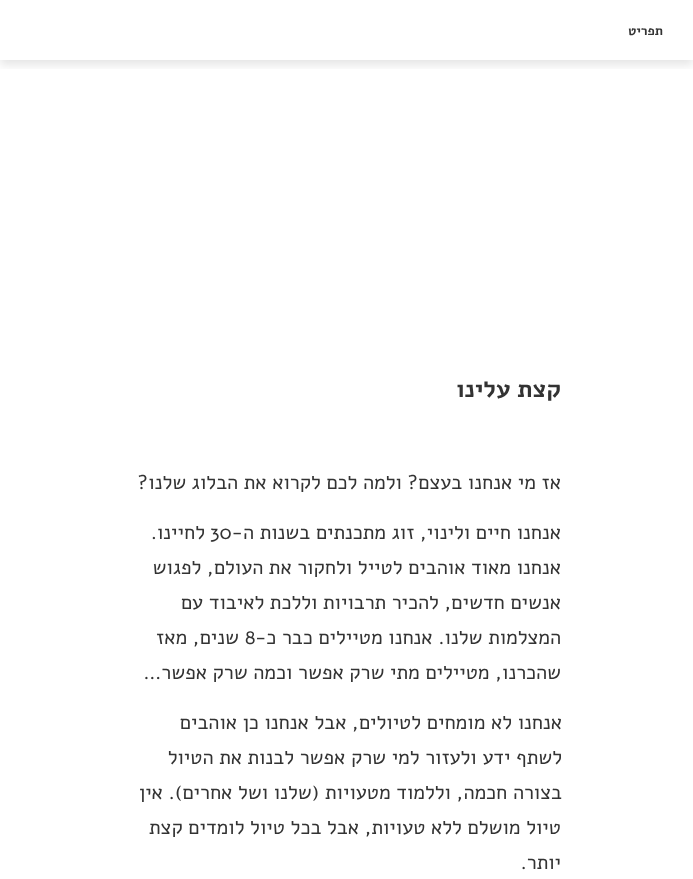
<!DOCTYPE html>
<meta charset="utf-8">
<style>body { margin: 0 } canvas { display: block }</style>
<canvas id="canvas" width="693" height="879"></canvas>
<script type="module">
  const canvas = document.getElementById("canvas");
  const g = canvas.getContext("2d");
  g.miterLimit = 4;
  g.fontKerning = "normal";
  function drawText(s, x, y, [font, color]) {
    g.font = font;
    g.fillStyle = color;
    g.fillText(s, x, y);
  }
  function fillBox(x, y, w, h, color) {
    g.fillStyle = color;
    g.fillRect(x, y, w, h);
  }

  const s1 = ["bold 13px Alef", "#333333"];
  const s2 = ["bold 24px Alef", "#333333"];
  const s3 = ["20px Alef", "#333333"];

  fillBox(0, 0, 693, 879, "#FFFFFF");
  g.save();
  g.beginPath();
  g.rect(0, 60, 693, 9);
  g.clip();
  g.fillStyle = "rgba(0, 0, 0, 0.1)";
  g.filter = "blur(5px)";
  g.beginPath();
  g.rect(0, 5, 693, 60);
  g.fill();
  g.filter = "none";
  g.restore();
  g.direction = "rtl";
  drawText("תפריט", 663, 35, s1);
  drawText("קצת עלינו", 561, 397, s2);
  drawText("אז מי אנחנו בעצם? ולמה לכם לקרוא את הבלוג שלנו?", 561, 489, s3);
  drawText("אנחנו חיים ולינוי, זוג מתכנתים בשנות ה-", 561, 539, s3);
  g.direction = "ltr";
  drawText("30", 210, 539, s3);
  g.direction = "rtl";
  drawText("לחיינו.", 205, 539, s3);
  drawText("אנחנו מאוד אוהבים לטייל ולחקור את העולם, לפגוש", 561, 574, s3);
  drawText("אנשים חדשים, להכיר תרבויות וללכת לאיבוד עם", 561, 609, s3);
  drawText("המצלמות שלנו. אנחנו מטיילים כבר כ-", 561, 644, s3);
  g.direction = "ltr";
  drawText("8", 245, 644, s3);
  g.direction = "rtl";
  drawText("שנים, מאז", 239, 644, s3);
  drawText("שהכרנו, מטיילים מתי שרק אפשר וכמה שרק אפשר…", 561, 679, s3);
  drawText("אנחנו לא מומחים לטיולים, אבל אנחנו כן אוהבים", 562, 729, s3);
  drawText("לשתף ידע ולעזור למי שרק אפשר לבנות את הטיול", 562, 764, s3);
  drawText("בצורה חכמה, וללמוד מטעויות (שלנו ושל אחרים). אין", 562, 799, s3);
  drawText("טיול מושלם ללא טעויות, אבל בכל טיול לומדים קצת", 561, 834, s3);
  drawText("יותר.", 561, 869, s3);
</script>
